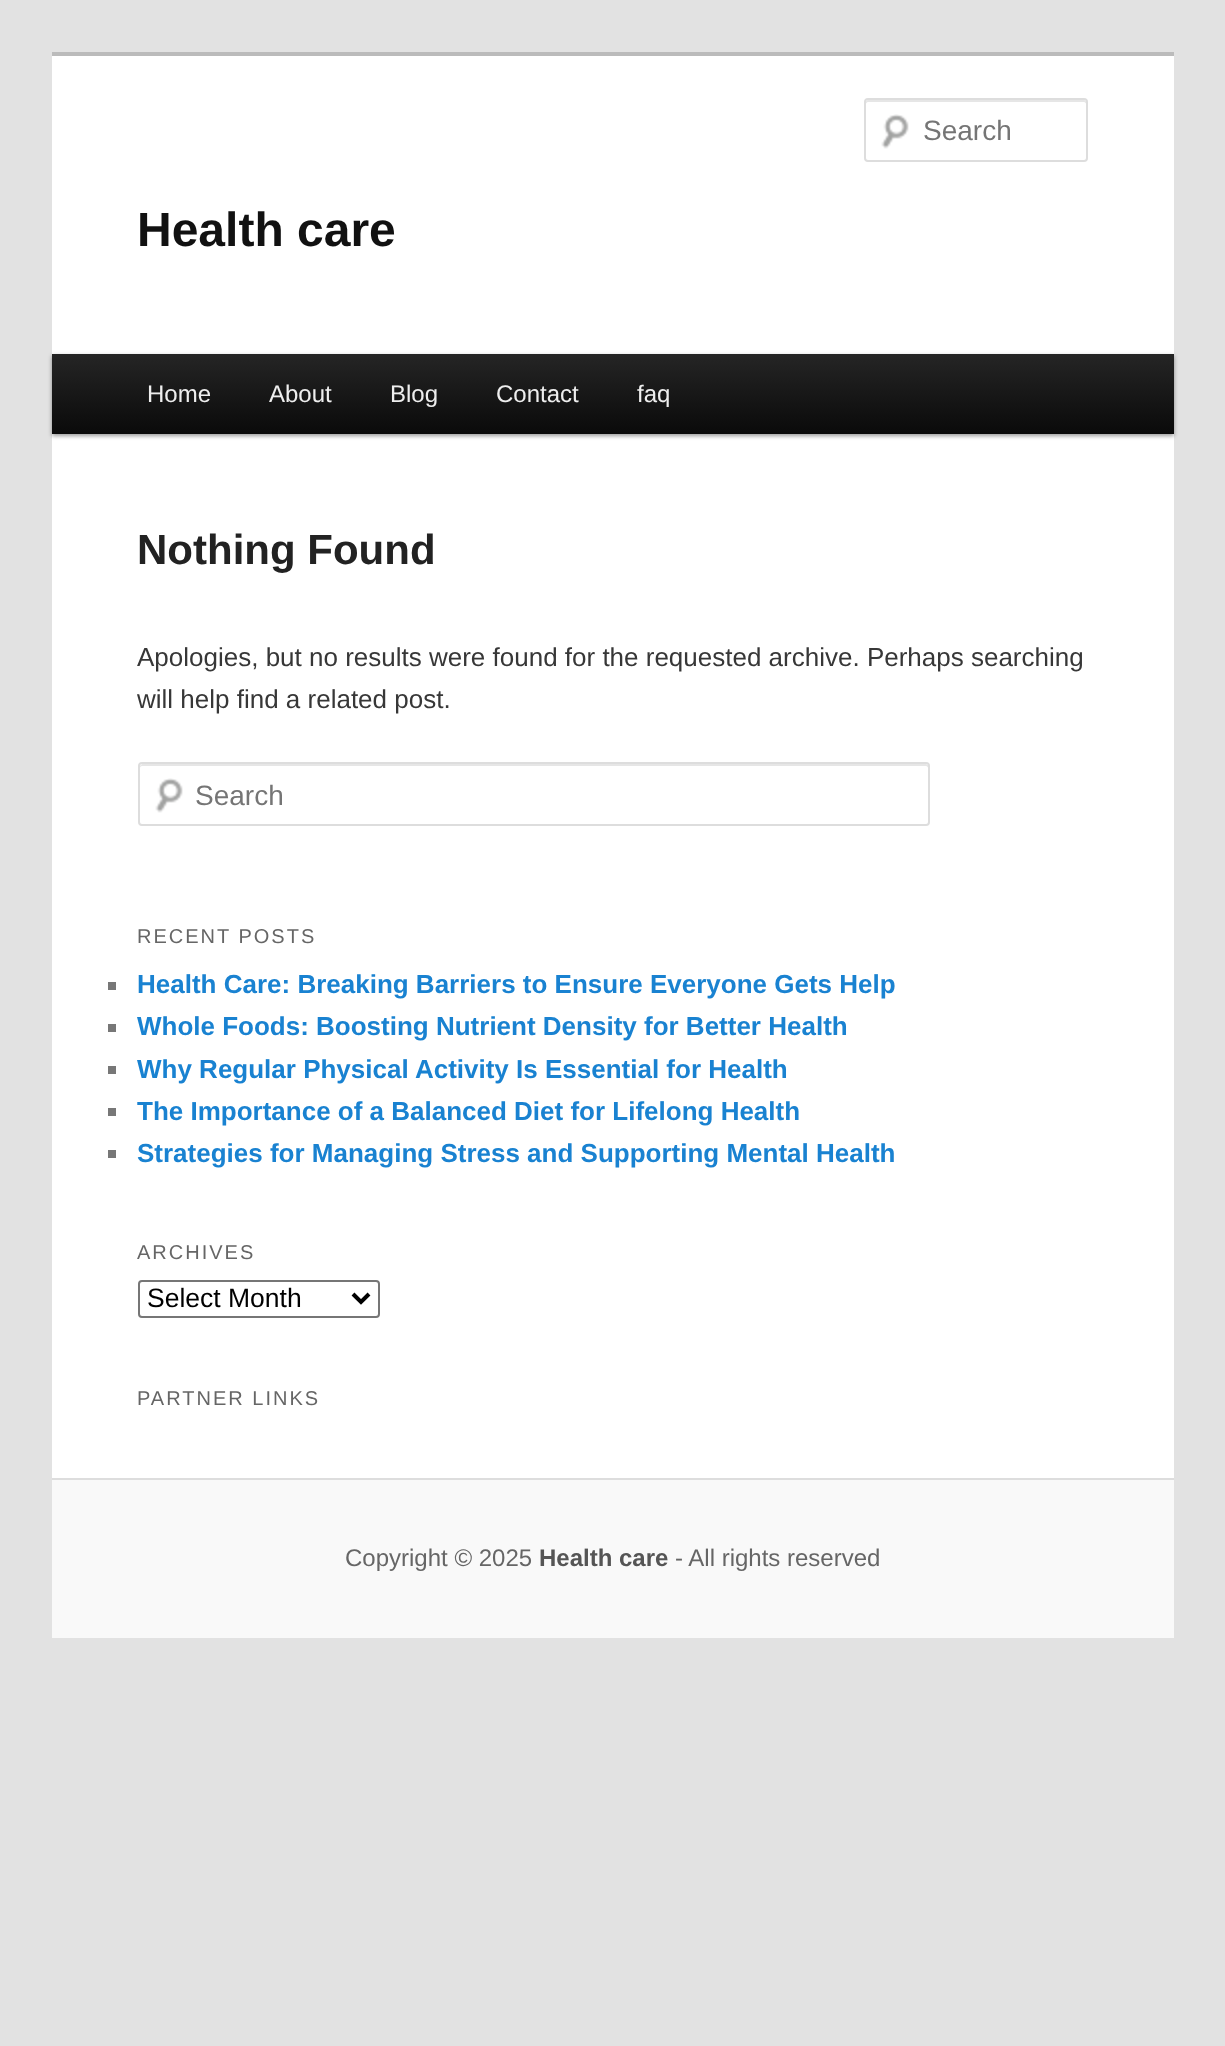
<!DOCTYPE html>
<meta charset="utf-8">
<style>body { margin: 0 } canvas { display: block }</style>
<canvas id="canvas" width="1225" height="2046"></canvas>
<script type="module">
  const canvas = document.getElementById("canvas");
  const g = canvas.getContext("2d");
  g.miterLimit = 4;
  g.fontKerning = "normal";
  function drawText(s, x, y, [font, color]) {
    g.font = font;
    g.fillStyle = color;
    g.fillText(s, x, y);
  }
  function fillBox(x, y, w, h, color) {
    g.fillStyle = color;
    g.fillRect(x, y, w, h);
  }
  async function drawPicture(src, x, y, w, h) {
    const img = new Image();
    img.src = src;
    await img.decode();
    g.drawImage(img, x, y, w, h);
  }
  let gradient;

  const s1 = ["28px Liberation Sans", "#757575"];
  const s2 = ["bold 48px Liberation Sans", "#111111"];
  const s3 = ["24px Liberation Sans", "#EEEEEE"];
  const s4 = ["bold 42px Liberation Sans", "#222222"];
  const s5 = ["26px Liberation Sans", "#373737"];
  const s6 = ["20px Liberation Sans", "#666666"];
  const s7 = ["bold 26px Liberation Sans", "#1982D1"];
  const s8 = ["26.5px Liberation Sans", "#000000"];
  const s9 = ["24px Liberation Sans", "#666666"];
  const s10 = ["bold 24px Liberation Sans", "#555555"];

  fillBox(0, 0, 1225, 2046, "#E2E2E2");
  fillBox(52, 56, 1122, 1422, "#FFFFFF");
  fillBox(52, 52, 1122, 4, "#BBBBBB");
  await drawPicture("pic1.png", 881, 114, 28, 35);
  g.fillStyle = "#E6E6E6";
  g.beginPath();
  g.moveTo(868, 102);
  g.lineTo(1084, 102);
  g.bezierCurveTo(1085, 102, 1086, 103, 1086, 104);
  g.lineTo(1086, 102);
  g.bezierCurveTo(1086, 101, 1085, 100, 1084, 100);
  g.lineTo(868, 100);
  g.bezierCurveTo(867, 100, 866, 101, 866, 102);
  g.lineTo(866, 104);
  g.bezierCurveTo(866, 103, 867, 102, 868, 102);
  g.closePath();
  g.fill();
  g.beginPath();
  g.roundRect(865, 99, 222, 62, 3);
  g.strokeStyle = "#DDDDDD";
  g.lineWidth = 2;
  g.stroke();
  drawText("Search", 923, 140, s1);
  drawText("Health care", 137, 246, s2);
  g.fillStyle = "rgba(0, 0, 0, 0.4)";
  g.filter = "blur(2px)";
  g.beginPath();
  g.rect(52, 356, 1122, 80);
  g.fill();
  g.filter = "none";
  gradient = g.createLinearGradient(613, 354, 613, 434);
  gradient.addColorStop(0, "#252525");
  gradient.addColorStop(1, "#0A0A0A");
  g.fillStyle = gradient;
  g.fillRect(52, 354, 1122, 80);
  drawText("Home", 147, 402, s3);
  drawText("About", 269, 402, s3);
  drawText("Blog", 390, 402, s3);
  drawText("Contact", 496, 402, s3);
  drawText("faq", 637, 402, s3);
  drawText("Nothing Found", 137, 564, s4);
  drawText("Apologies, but no results were found for the requested archive. Perhaps searching", 137, 666, s5);
  drawText("will help find a related post.", 137, 708, s5);
  await drawPicture("pic1.png", 155, 778, 28, 35);
  g.fillStyle = "#E6E6E6";
  g.beginPath();
  g.moveTo(142, 766);
  g.lineTo(926, 766);
  g.bezierCurveTo(927, 766, 928, 767, 928, 768);
  g.lineTo(928, 765);
  g.lineTo(926, 764);
  g.lineTo(142, 764);
  g.lineTo(141, 765);
  g.bezierCurveTo(140, 765, 140, 767, 140, 768);
  g.bezierCurveTo(140, 767, 141, 766, 142, 766);
  g.closePath();
  g.fill();
  g.beginPath();
  g.roundRect(139, 763, 790, 62, 3);
  g.stroke();
  drawText("Search", 195, 805, s1);
  g.letterSpacing = "2px";
  drawText("RECENT POSTS", 137, 943, s6);
  fillBox(108, 982, 8, 8, "#777777");
  g.letterSpacing = "0px";
  drawText("Health Care: Breaking Barriers to Ensure Everyone Gets Help", 137, 993, s7);
  fillBox(108, 1024, 8, 8, "#777777");
  drawText("Whole Foods: Boosting Nutrient Density for Better Health", 137, 1035, s7);
  fillBox(108, 1066, 8, 8, "#777777");
  drawText("Why Regular Physical Activity Is Essential for Health", 137, 1078, s7);
  fillBox(108, 1108, 8, 8, "#777777");
  drawText("The Importance of a Balanced Diet for Lifelong Health", 137, 1120, s7);
  fillBox(108, 1150, 8, 8, "#777777");
  drawText("Strategies for Managing Stress and Supporting Mental Health", 137, 1162, s7);
  g.letterSpacing = "2px";
  drawText("ARCHIVES", 137, 1259, s6);
  g.beginPath();
  g.roundRect(139, 1281, 240, 36, 3);
  g.strokeStyle = "#767676";
  g.stroke();
  g.beginPath();
  g.moveTo(353, 1294);
  g.lineTo(361, 1302);
  g.lineTo(369, 1294);
  g.strokeStyle = "#000000";
  g.lineWidth = 4;
  g.stroke();
  g.letterSpacing = "0px";
  drawText("Select Month", 147, 1307, s8);
  g.letterSpacing = "2px";
  drawText("PARTNER LINKS", 137, 1405, s6);
  fillBox(52, 1480, 1122, 158, "#F9F9F9");
  fillBox(52, 1478, 1122, 2, "#DDDDDD");
  g.letterSpacing = "0px";
  drawText("Copyright © 2025", 345, 1566, s9);
  drawText("Health care", 539, 1566, s10);
  drawText("- All rights reserved", 675, 1566, s9);
</script>
